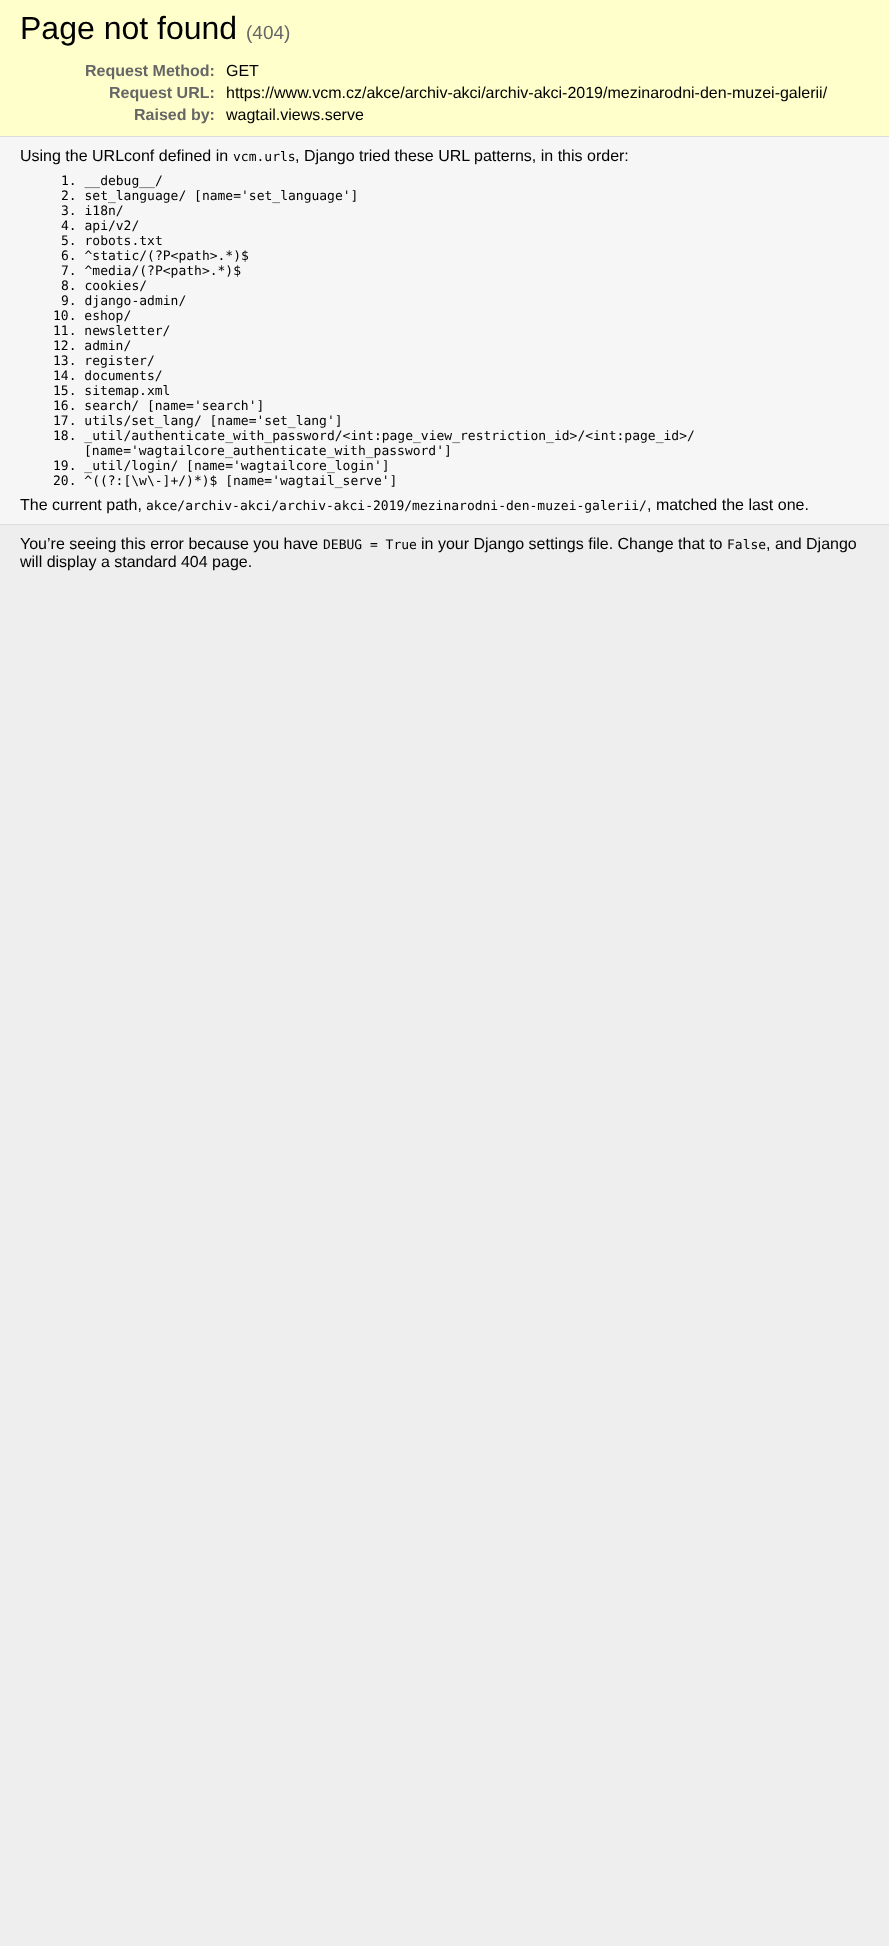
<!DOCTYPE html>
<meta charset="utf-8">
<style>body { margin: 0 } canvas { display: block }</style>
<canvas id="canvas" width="889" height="1946"></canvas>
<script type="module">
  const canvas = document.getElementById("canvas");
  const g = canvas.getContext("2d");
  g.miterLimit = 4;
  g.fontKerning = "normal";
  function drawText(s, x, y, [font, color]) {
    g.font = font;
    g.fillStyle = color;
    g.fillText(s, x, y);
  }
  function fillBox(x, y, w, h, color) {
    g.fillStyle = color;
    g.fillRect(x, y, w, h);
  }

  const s1 = ["32px Liberation Sans", "#000000"];
  const s2 = ["19px Liberation Sans", "#666666"];
  const s3 = ["bold 16px Liberation Sans", "#666666"];
  const s4 = ["16px Liberation Sans", "#000000"];
  const s5 = ["13px DejaVu Sans Mono", "#000000"];

  fillBox(0, 0, 889, 1946, "#EEEEEE");
  fillBox(0, 0, 889, 136, "#FFFFCC");
  fillBox(0, 136, 889, 1, "#DDDDDD");
  drawText("Page not found", 20, 39, s1);
  drawText("(404)", 246, 39, s2);
  drawText("Request Method:", 85, 76, s3);
  drawText("GET", 226, 76, s4);
  drawText("Request URL:", 109, 98, s3);
  drawText("https://www.vcm.cz/akce/archiv-akci/archiv-akci-2019/mezinarodni-den-muzei-galerii/", 226, 98, s4);
  drawText("Raised by:", 134, 120, s3);
  drawText("wagtail.views.serve", 226, 120, s4);
  fillBox(0, 137, 889, 387, "#F6F6F6");
  fillBox(0, 524, 889, 1, "#DDDDDD");
  drawText("Using the URLconf defined in", 20, 161, s4);
  drawText("vcm.urls", 233, 161, s5);
  drawText(", Django tried these URL patterns, in this order:", 295, 161, s4);
  drawText("1. __debug__/", 61, 185, s5);
  drawText("2. set_language/ [name='set_language']", 61, 200, s5);
  drawText("3. i18n/", 61, 215, s5);
  drawText("4. api/v2/", 61, 230, s5);
  drawText("5. robots.txt", 61, 245, s5);
  drawText("6. ^static/(?P<path>.*)$", 61, 260, s5);
  drawText("7. ^media/(?P<path>.*)$", 61, 275, s5);
  drawText("8. cookies/", 61, 290, s5);
  drawText("9. django-admin/", 61, 305, s5);
  drawText("10. eshop/", 53, 320, s5);
  drawText("11. newsletter/", 53, 335, s5);
  drawText("12. admin/", 53, 350, s5);
  drawText("13. register/", 53, 365, s5);
  drawText("14. documents/", 53, 380, s5);
  drawText("15. sitemap.xml", 53, 395, s5);
  drawText("16. search/ [name='search']", 53, 410, s5);
  drawText("17. utils/set_lang/ [name='set_lang']", 53, 425, s5);
  drawText("18. _util/authenticate_with_password/<int:page_view_restriction_id>/<int:page_id>/", 53, 440, s5);
  drawText("[name='wagtailcore_authenticate_with_password']", 84, 455, s5);
  drawText("19. _util/login/ [name='wagtailcore_login']", 53, 470, s5);
  drawText("20. ^((?:[\\w\\-]+/)*)$ [name='wagtail_serve']", 53, 485, s5);
  drawText("The current path,", 20, 510, s4);
  drawText("akce/archiv-akci/archiv-akci-2019/mezinarodni-den-muzei-galerii/", 146, 510, s5);
  drawText(", matched the last one.", 647, 510, s4);
  drawText("You’re seeing this error because you have", 20, 549, s4);
  drawText("DEBUG = True", 323, 549, s5);
  drawText("in your Django settings file. Change that to", 421, 549, s4);
  drawText("False", 727, 549, s5);
  drawText(", and Django", 766, 549, s4);
  drawText("will display a standard 404 page.", 20, 567, s4);
</script>
